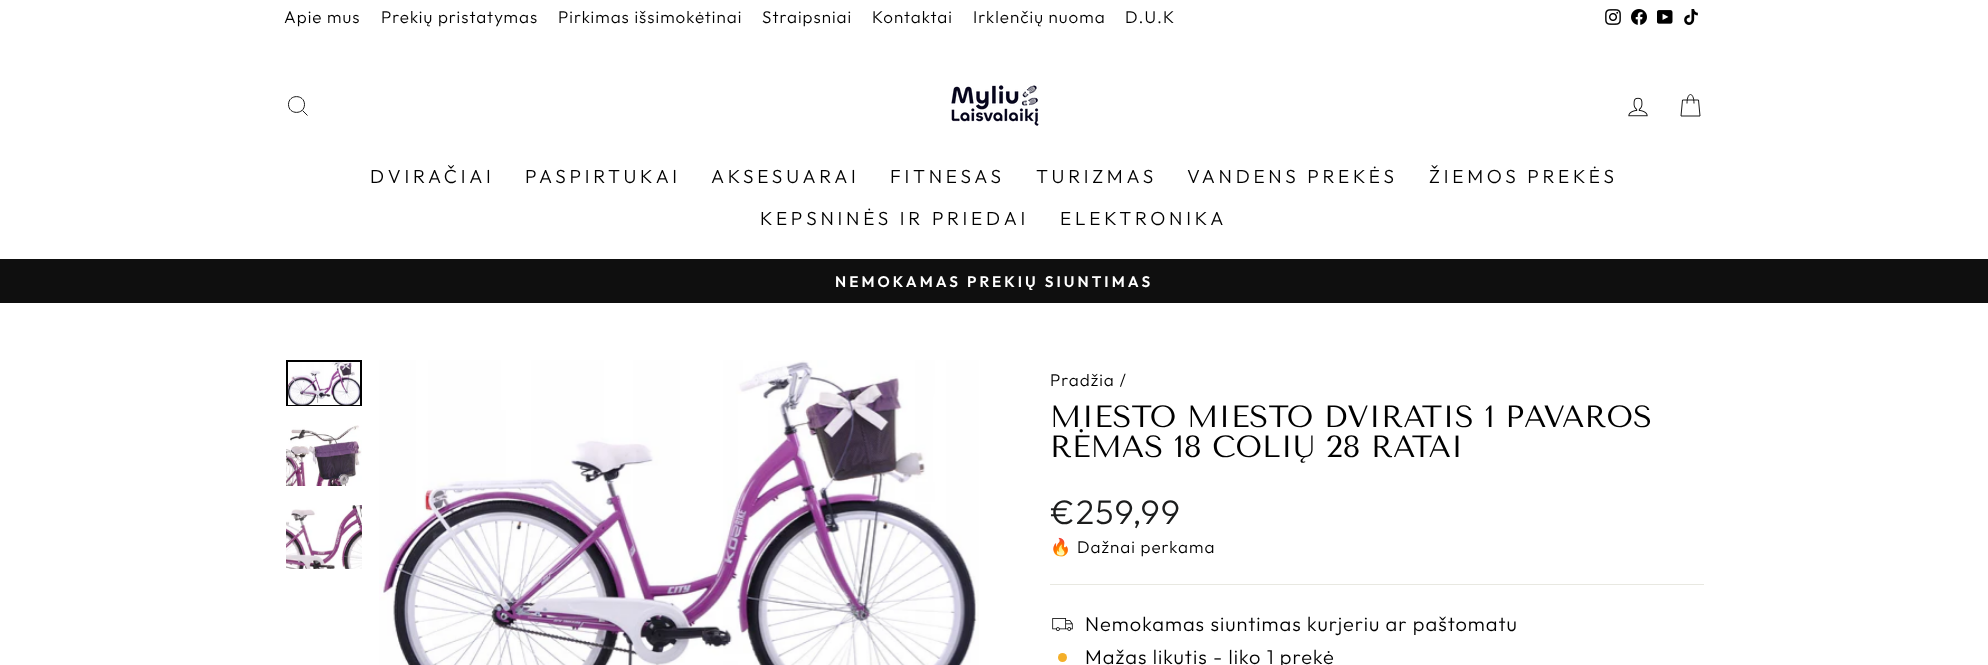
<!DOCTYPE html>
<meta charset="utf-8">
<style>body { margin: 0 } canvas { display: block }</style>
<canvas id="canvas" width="1988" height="665"></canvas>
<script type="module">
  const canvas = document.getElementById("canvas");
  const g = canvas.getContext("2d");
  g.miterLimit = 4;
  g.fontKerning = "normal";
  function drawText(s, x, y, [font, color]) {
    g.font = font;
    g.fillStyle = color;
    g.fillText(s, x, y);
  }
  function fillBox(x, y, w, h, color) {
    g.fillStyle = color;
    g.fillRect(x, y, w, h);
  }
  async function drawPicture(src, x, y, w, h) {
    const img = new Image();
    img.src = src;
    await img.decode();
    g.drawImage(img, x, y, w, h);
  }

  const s1 = ["300 17px Outfit", "#000000"];
  const s2 = ["300 19px Outfit", "#000000"];
  const s3 = ["600 15.3px Outfit", "#FFFFFF"];
  const s4 = ["30.6px Tenor Sans", "#000000"];
  const s5 = ["300 34px Outfit", "#1C1D1D"];
  const s6 = ["17px Noto Color Emoji", "#000000"];
  const s7 = ["300 20px Outfit", "#000000"];

  fillBox(0, 0, 1988, 665, "#FFFFFF");
  g.letterSpacing = "1px";
  drawText("Apie mus", 284, 23, s1);
  drawText("Prekių pristatymas", 381, 23, s1);
  drawText("Pirkimas išsimokėtinai", 558, 23, s1);
  drawText("Straipsniai", 762, 23, s1);
  drawText("Kontaktai", 872, 23, s1);
  drawText("Irklenčių nuoma", 973, 23, s1);
  drawText("D.U.K", 1125, 23, s1);
  await drawPicture("pic1.png", 1605, 9, 16, 16);
  await drawPicture("pic2.png", 1631, 9, 16, 16);
  await drawPicture("pic3.png", 1657, 10, 16, 14);
  await drawPicture("pic4.png", 1684, 9, 14, 16);
  g.beginPath();
  g.moveTo(304.5, 104.5);
  g.bezierCurveTo(304.5, 115, 288.5, 115, 288.5, 104.5);
  g.bezierCurveTo(288.5, 94, 304.5, 94, 304.5, 104.5);
  g.closePath();
  g.moveTo(307.5, 115.5);
  g.lineTo(302.5, 110.5);
  g.strokeStyle = "#000000";
  g.lineWidth = 0.9;
  g.stroke();
  await drawPicture("pic5.png", 951, 85, 88, 41);
  await drawPicture("pic6.png", 1628, 97, 20, 20);
  g.beginPath();
  g.moveTo(1687, 103.5);
  g.bezierCurveTo(1687, 91.5, 1694, 91.5, 1694, 103.5);
  g.moveTo(1682.5, 100);
  g.lineTo(1698.5, 100);
  g.lineTo(1700, 116);
  g.lineTo(1681, 116);
  g.closePath();
  g.stroke();
  g.letterSpacing = "3.75px";
  drawText("DVIRAČIAI", 370, 183, s2);
  drawText("PASPIRTUKAI", 525, 183, s2);
  drawText("AKSESUARAI", 711, 183, s2);
  drawText("FITNESAS", 890, 183, s2);
  drawText("TURIZMAS", 1036, 183, s2);
  drawText("VANDENS PREKĖS", 1187, 183, s2);
  drawText("ŽIEMOS PREKĖS", 1429, 183, s2);
  drawText("KEPSNINĖS IR PRIEDAI", 760, 225, s2);
  drawText("ELEKTRONIKA", 1060, 225, s2);
  fillBox(0, 259, 1988, 44, "#0F0F0F");
  g.letterSpacing = "3.05px";
  drawText("NEMOKAMAS PREKIŲ SIUNTIMAS", 835, 287, s3);
  await drawPicture("pic7.png", 288, 362, 72, 43);
  g.save();
  g.beginPath();
  g.rect(286, 360, 76, 46);
  g.clip();
  g.lineWidth = 2;
  g.strokeRect(287, 361, 74, 45);
  g.restore();
  await drawPicture("pic8.png", 286, 425, 76, 61);
  await drawPicture("pic9.png", 286, 505, 76, 64);
  await drawPicture("pic10.png", 379, 360, 600, 305);
  g.letterSpacing = "1px";
  drawText("Pradžia /", 1050, 386, s1);
  g.letterSpacing = "0px";
  drawText("MIESTO MIESTO DVIRATIS 1 PAVAROS", 1050, 427, s4);
  drawText("RĖMAS 18 COLIŲ 28 RATAI", 1050, 457, s4);
  g.letterSpacing = "1px";
  drawText("€259,99", 1050, 524, s5);
  drawText("🔥", 1050, 553, s6);
  drawText("Dažnai perkama", 1077, 553, s1);
  fillBox(1050, 584, 654, 1, "#E8E8E1");
  await drawPicture("pic11.png", 1052, 618, 21, 13);
  drawText("Nemokamas siuntimas kurjeriu ar paštomatu", 1085, 631, s7);
  g.fillStyle = "#F4AF29";
  g.beginPath();
  g.arc(1062.5, 657.5, 4.5, 0, Math.PI * 2);
  g.fill();
  drawText("Mažas likutis - liko 1 prekė", 1085, 664, s7);
</script>
